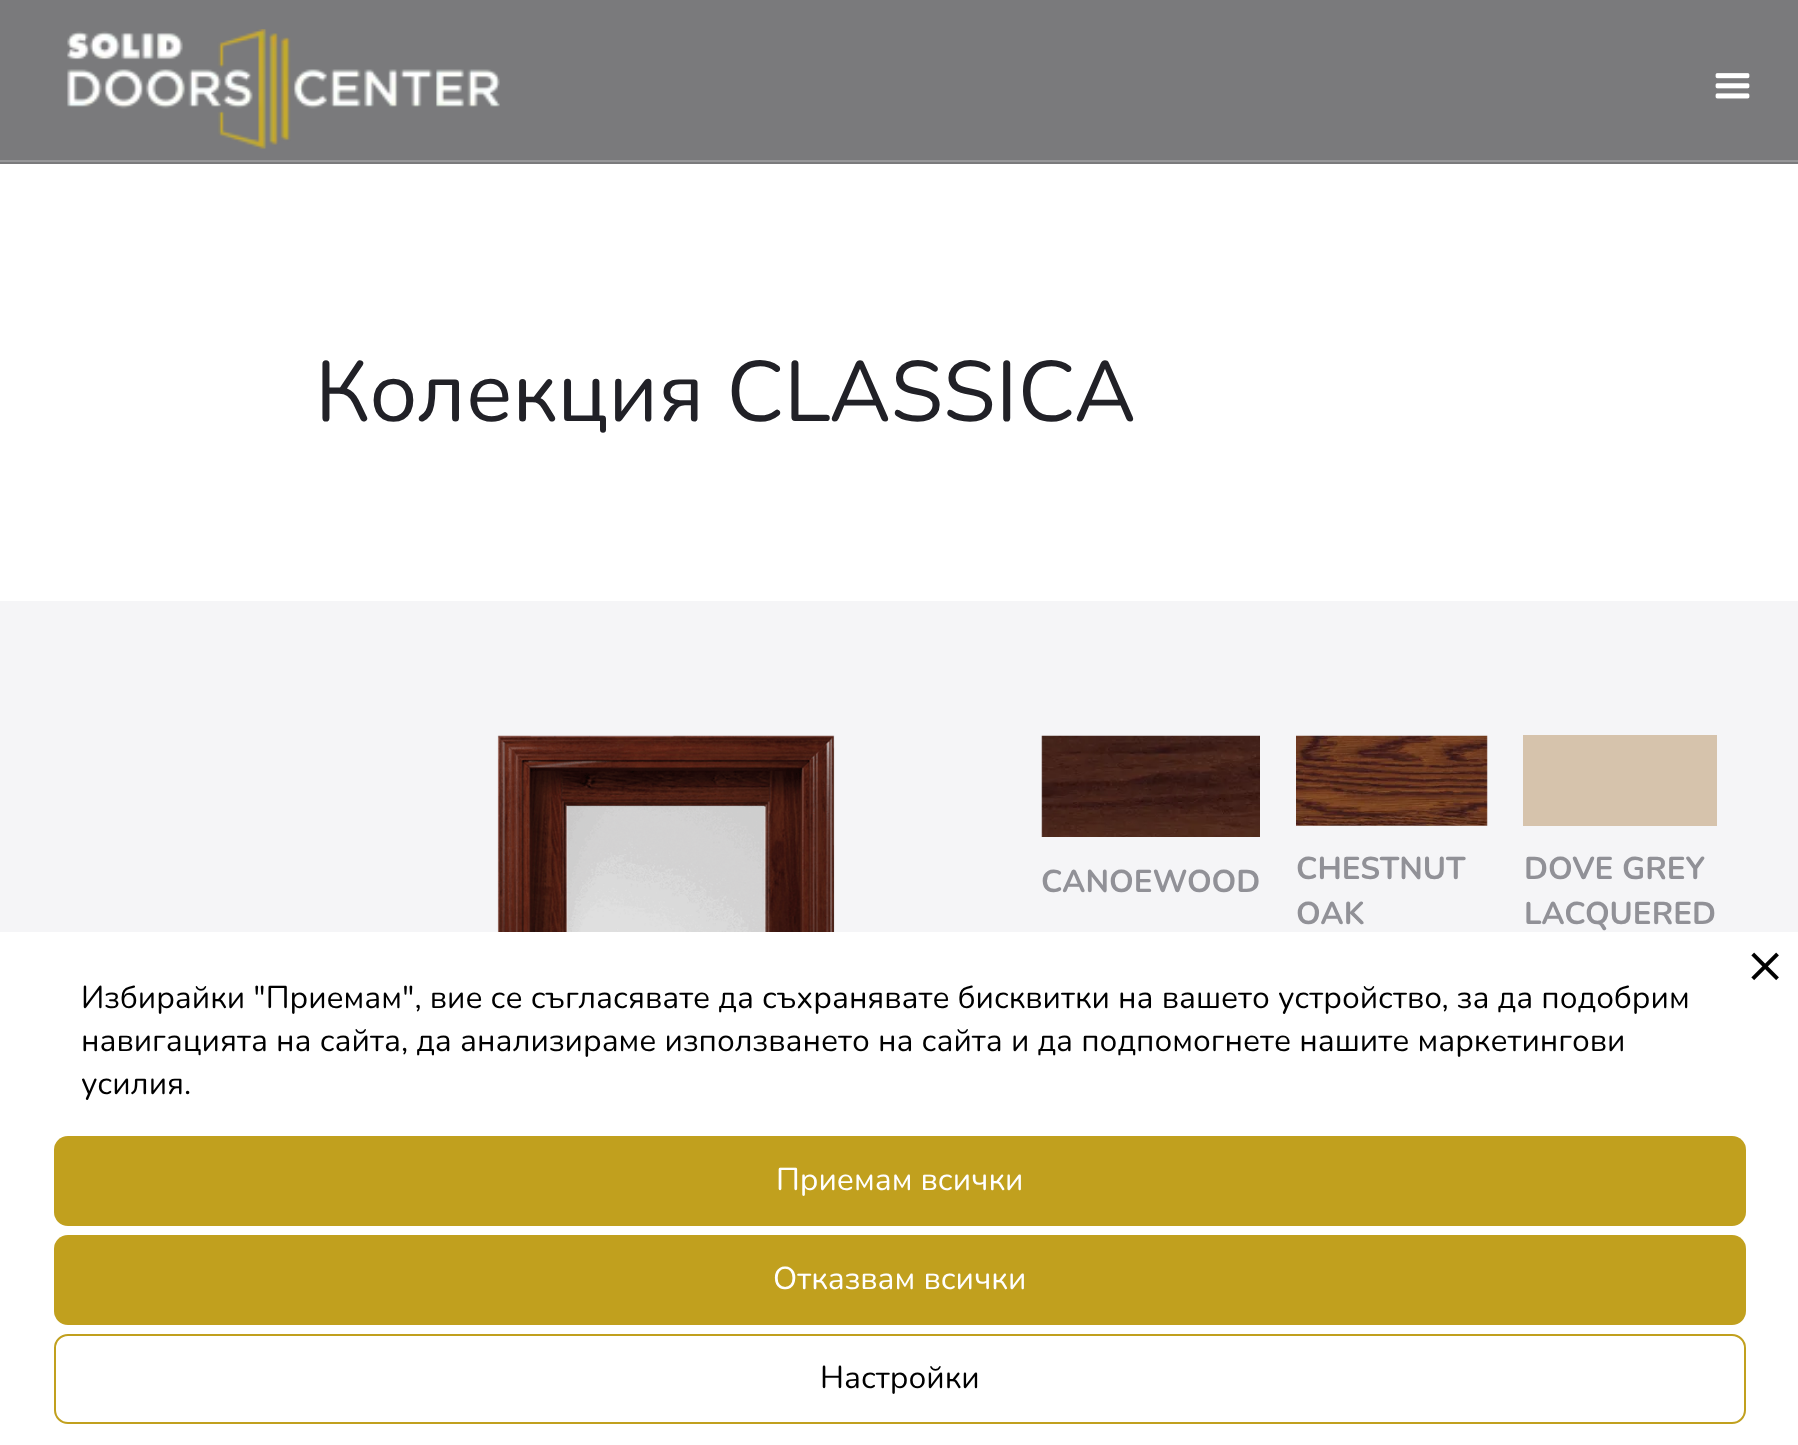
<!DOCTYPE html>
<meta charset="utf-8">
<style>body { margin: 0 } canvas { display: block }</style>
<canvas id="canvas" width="1798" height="1445"></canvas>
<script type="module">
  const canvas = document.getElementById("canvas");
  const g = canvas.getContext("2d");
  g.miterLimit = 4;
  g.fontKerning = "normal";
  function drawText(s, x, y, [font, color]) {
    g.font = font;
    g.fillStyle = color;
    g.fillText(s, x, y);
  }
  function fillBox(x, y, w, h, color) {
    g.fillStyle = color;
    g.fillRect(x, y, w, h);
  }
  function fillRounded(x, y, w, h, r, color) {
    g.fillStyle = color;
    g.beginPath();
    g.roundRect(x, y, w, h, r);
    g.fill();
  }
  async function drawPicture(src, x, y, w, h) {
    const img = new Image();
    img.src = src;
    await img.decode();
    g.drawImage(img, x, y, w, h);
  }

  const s1 = ["85.5px Nunito", "#212127"];
  const s2 = ["bold 31.5px Nunito", "#919197"];
  const s3 = ["31.5px Nunito", "#000000"];
  const s4 = ["31.5px Nunito", "#FFFFFF"];

  fillBox(0, 0, 1798, 1445, "#F5F5F7");
  fillBox(0, 0, 1798, 164, "#7A7A7C");
  fillBox(0, 160, 1798, 2, "#979799");
  await drawPicture("pic1.png", 67, 29, 433, 120);
  await drawPicture("pic2.png", 1715, 73, 35, 26);
  fillBox(0, 164, 1798, 437, "#FFFFFF");
  drawText("Колекция CLASSICA", 315, 421, s1);
  await drawPicture("pic3.png", 497, 735, 338, 197);
  await drawPicture("pic4.png", 1041, 735, 219, 102);
  drawText("CANOEWOOD", 1041, 892, s2);
  await drawPicture("pic5.png", 1296, 735, 192, 91);
  drawText("CHESTNUT", 1296, 879, s2);
  drawText("OAK", 1296, 924, s2);
  fillBox(1523, 735, 194, 91, "#D6C3AC");
  drawText("DOVE GREY", 1524, 879, s2);
  drawText("LACQUERED", 1524, 924, s2);
  fillBox(0, 932, 1798, 513, "#FFFFFF");
  await drawPicture("pic6.png", 1751, 952, 28, 29);
  drawText("Избирайки \"Приемам\", вие се съгласявате да съхранявате бисквитки на вашето устройство, за да подобрим", 81, 1008, s3);
  drawText("навигацията на сайта, да анализираме използването на сайта и да подпомогнете нашите маркетингови", 81, 1051, s3);
  drawText("усилия.", 81, 1094, s3);
  fillRounded(54, 1136, 1692, 90, 14, "#C1A01E");
  drawText("Приемам всички", 776, 1190, s4);
  fillRounded(54, 1235, 1692, 90, 14, "#C1A01E");
  drawText("Отказвам всички", 773, 1289, s4);
  g.beginPath();
  g.roundRect(55, 1335, 1690, 88, 13);
  g.strokeStyle = "#C1A01E";
  g.lineWidth = 2;
  g.stroke();
  drawText("Настройки", 820, 1388, s3);
</script>
